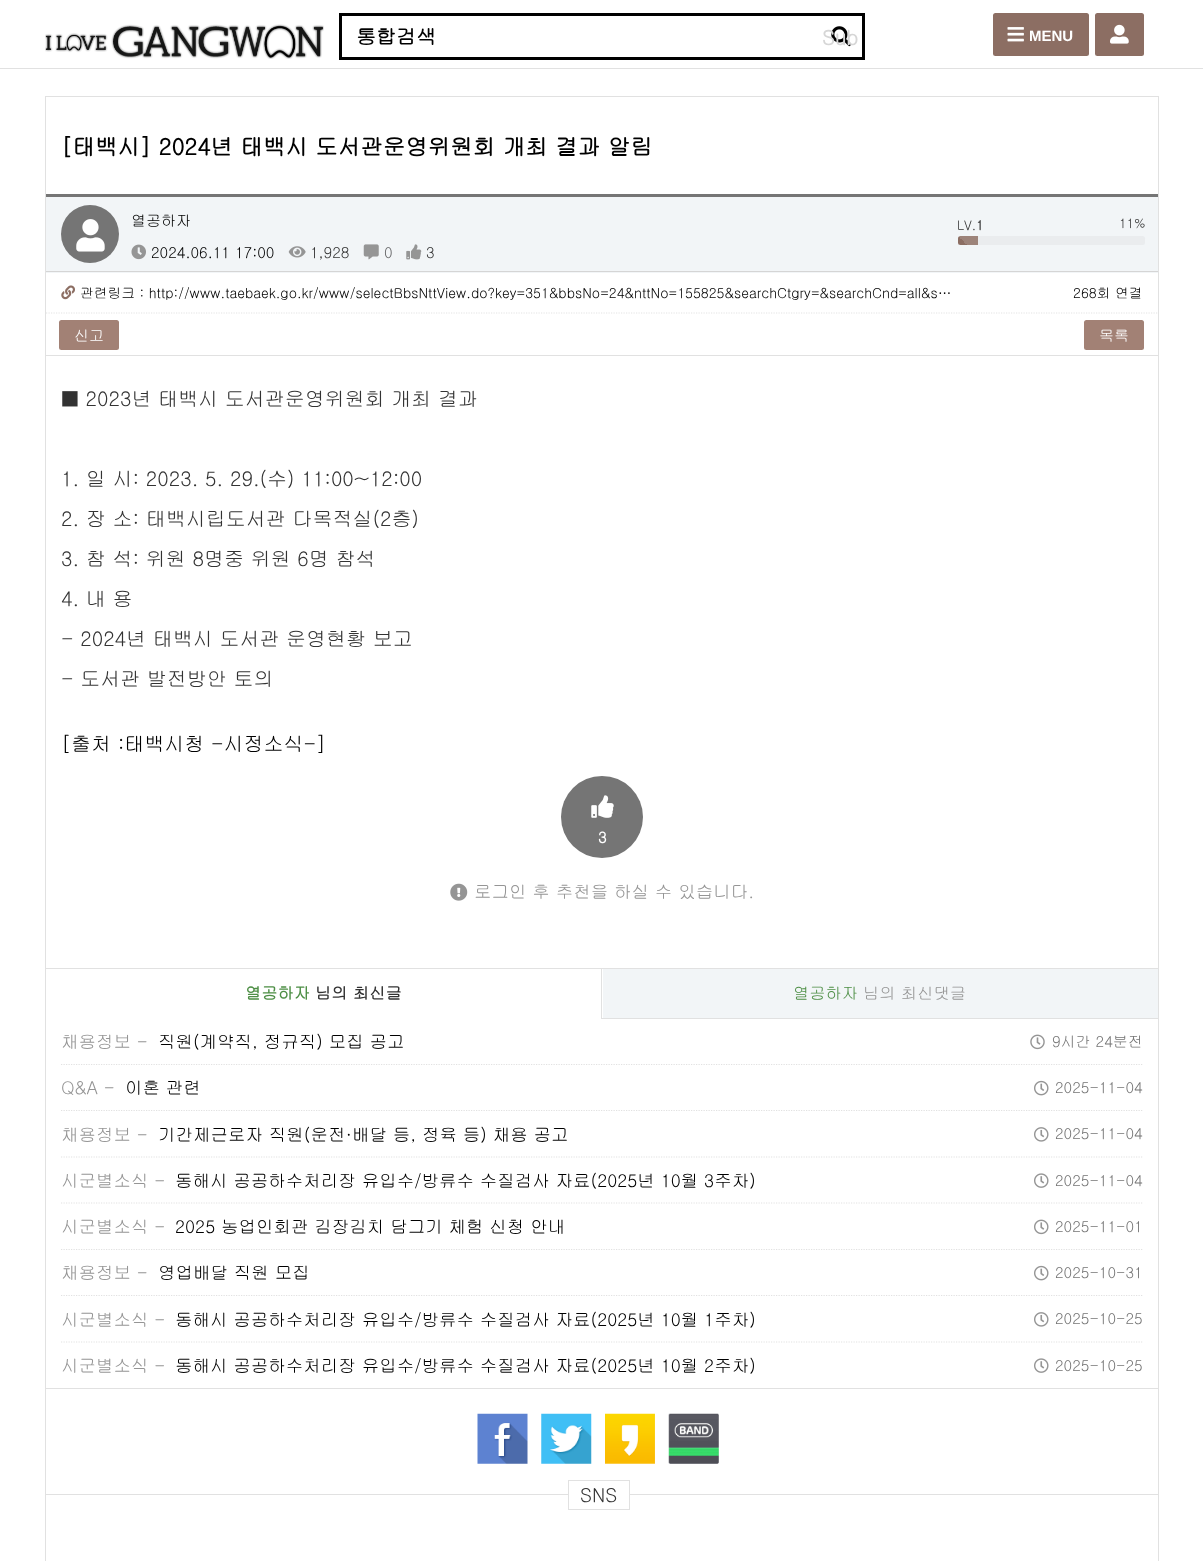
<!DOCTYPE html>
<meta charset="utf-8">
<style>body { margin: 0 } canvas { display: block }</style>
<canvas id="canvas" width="1203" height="1561"></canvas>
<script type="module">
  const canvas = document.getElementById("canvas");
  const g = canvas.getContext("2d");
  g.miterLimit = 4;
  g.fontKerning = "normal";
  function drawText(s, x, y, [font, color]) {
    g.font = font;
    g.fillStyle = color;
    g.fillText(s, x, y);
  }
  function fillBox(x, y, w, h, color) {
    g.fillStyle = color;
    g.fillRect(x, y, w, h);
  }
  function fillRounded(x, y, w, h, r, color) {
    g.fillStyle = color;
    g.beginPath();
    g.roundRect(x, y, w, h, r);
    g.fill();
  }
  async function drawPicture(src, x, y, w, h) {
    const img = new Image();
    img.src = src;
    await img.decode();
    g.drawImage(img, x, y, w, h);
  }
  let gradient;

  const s1 = ["bold 20px Gulim", "#000000"];
  const s2 = ["bold 20px Gulim", "#D6D6D6"];
  const s3 = ["bold 15px Liberation Sans", "#FFFFFF"];
  const s4 = ["bold 22.5px Gulim", "#000000"];
  const s5 = ["15px Gulim", "#000000"];
  const s6 = ["15px Gulim", "#333333"];
  const s7 = ["15px Gulim", "#676769"];
  const s8 = ["13px Gulim", "#333333"];
  const s9 = ["bold 13px Gulim", "#333333"];
  const s10 = ["13.75px Gulim", "#000000"];
  const s11 = ["15px Gulim", "#FFFFFF"];
  const s12 = ["20px Gulim", "#333333"];
  const s13 = ["20px Gulim", "#000000"];
  const s14 = ["bold 15px Gulim", "#FFFFFF"];
  const s15 = ["17.5px Gulim", "#959595"];
  const s16 = ["bold 16.25px Gulim", "#4E8F46"];
  const s17 = ["bold 16.25px Gulim", "#333333"];
  const s18 = ["16.25px Gulim", "#4E8F46"];
  const s19 = ["16.25px Gulim", "#959595"];
  const s20 = ["17.5px Gulim", "#000000"];
  const s21 = ["15px Gulim", "#757575"];
  const s22 = ["19px Gulim", "#333333"];

  fillBox(0, 0, 1203, 1561, "#FFFFFF");
  fillBox(0, 68, 1203, 1, "#E1E1E1");
  await drawPicture("pic1.png", 45, 24, 279, 35);
  g.strokeStyle = "#000000";
  g.lineWidth = 3;
  g.strokeRect(340.5, 14.5, 523, 44);
  drawText("통합검색", 356, 44, s1);
  await drawPicture("pic2.png", 831, 26, 21, 21);
  drawText("Sub", 822, 45, s2);
  fillRounded(993, 13, 96, 43, 2.5, "#8C6E63");
  await drawPicture("pic3.png", 1007, 27, 17, 15);
  drawText("MENU", 1029, 41, s3);
  fillRounded(1095, 13, 49, 43, 2.5, "#8C6E63");
  await drawPicture("pic4.png", 1110, 24, 19, 20);
  g.strokeStyle = "#E1E1E1";
  g.lineWidth = 1;
  g.strokeRect(45.5, 96.5, 1113, 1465);
  drawText("[태백시] 2024년 태백시 도서관운영위원회 개최 결과 알림", 61, 155, s4);
  fillBox(46, 197, 1112, 76, "#F2F5F7");
  fillBox(46, 194, 1112, 3, "#757575");
  fillBox(46, 271, 1112, 1, "#D5D5D5");
  g.fillStyle = "#757575";
  g.beginPath();
  g.arc(90, 234, 29, 0, Math.PI * 2);
  g.fill();
  await drawPicture("pic5.png", 76, 219, 29, 33);
  drawText("열공하자", 131, 226, s5);
  await drawPicture("pic6.png", 131, 244, 15, 16);
  drawText("2024.06.11 17:00", 151, 258, s5);
  await drawPicture("pic7.png", 288, 246, 18, 12);
  drawText("1,928", 310, 258, s6);
  await drawPicture("pic8.png", 363, 244, 16, 16);
  drawText("0", 384, 258, s7);
  await drawPicture("pic9.png", 406, 244, 16, 16);
  drawText("3", 426, 258, s6);
  drawText("LV.", 957, 230, s8);
  drawText("1", 976, 230, s9);
  drawText("11%", 1119, 228, s8);
  fillRounded(958, 236, 187, 9, 2.5, "#EAECEE");
  g.fillStyle = "#8C6E63";
  g.beginPath();
  g.roundRect(958, 236, 20, 9, [2.5, 0, 0, 2.5]);
  g.fill();
  gradient = g.createLinearGradient(958, 286, 1008, 236);
  gradient.addColorStop(0.25, "rgba(255, 255, 255, 0.15)");
  gradient.addColorStop(0.25, "rgba(255, 255, 255, 0)");
  gradient.addColorStop(0.5, "rgba(255, 255, 255, 0)");
  gradient.addColorStop(0.5, "rgba(255, 255, 255, 0.15)");
  gradient.addColorStop(0.75, "rgba(255, 255, 255, 0.15)");
  gradient.addColorStop(0.75, "rgba(255, 255, 255, 0)");
  gradient.addColorStop(1, "rgba(0, 0, 0, 0)");
  g.fillStyle = gradient;
  g.fillRect(959, 236, 19, 9);
  g.beginPath();
  g.moveTo(46, 313);
  g.lineTo(1157.5, 313);
  g.strokeStyle = "#E4E4E4";
  g.lineWidth = 1.2;
  g.setLineDash([1.25, 1.25]);
  g.stroke();
  await drawPicture("pic10.png", 61, 285, 14, 15);
  drawText("관련링크 : http://www.taebaek.go.kr/www/selectBbsNttView.do?key=351&bbsNo=24&nttNo=155825&searchCtgry=&searchCnd=all&s…", 80, 298, s10);
  drawText("268회 연결", 1073, 298, s10);
  fillBox(46, 355, 1112, 1, "#E1E1E1");
  fillRounded(59, 320, 60, 30, 2.5, "#A28175");
  drawText("신고", 74, 341, s11);
  fillRounded(1084, 320, 60, 30, 2.5, "#A28175");
  drawText("목록", 1099, 341, s11);
  drawText("■ 2023년 태백시 도서관운영위원회 개최 결과", 61, 406, s12);
  drawText("1. 일 시: 2023. 5. 29.(수) 11:00~12:00", 61, 486, s12);
  drawText("2. 장 소: 태백시립도서관 다목적실(2층)", 61, 526, s12);
  drawText("3. 참 석: 위원 8명중 위원 6명 참석", 61, 566, s12);
  drawText("4. 내 용", 61, 606, s12);
  drawText("- 2024년 태백시 도서관 운영현황 보고", 61, 646, s12);
  drawText("- 도서관 발전방안 토의", 61, 686, s12);
  drawText("[출처 :태백시청 -시정소식-]", 61, 751, s13);
  g.fillStyle = "#757575";
  g.beginPath();
  g.arc(602, 817, 41, 0, Math.PI * 2);
  g.fill();
  await drawPicture("pic11.png", 591, 795, 23, 23);
  drawText("3", 598, 843, s14);
  await drawPicture("pic12.png", 450, 883, 18, 18);
  drawText("로그인 후 추천을 하실 수 있습니다.", 474, 898, s15);
  g.strokeStyle = "#E1E1E1";
  g.lineWidth = 1;
  g.setLineDash([]);
  g.strokeRect(45.5, 968.5, 1113, 420);
  fillBox(601, 969, 1, 49, "#E1E1E1");
  drawText("열공하자", 245, 999, s16);
  drawText("님의 최신글", 315, 999, s17);
  fillBox(603, 969, 555, 49, "#F2F5F7");
  fillBox(601, 1018, 557, 1, "#E1E1E1");
  drawText("열공하자", 793, 999, s18);
  drawText("님의 최신댓글", 863, 999, s19);
  g.beginPath();
  g.moveTo(61, 1064.5);
  g.lineTo(1142.5, 1064.5);
  g.lineWidth = 1.2;
  g.setLineDash([1.25, 1.25]);
  g.stroke();
  drawText("채용정보 -", 61, 1048, s15);
  drawText("직원(계약직, 정규직) 모집 공고", 158, 1048, s20);
  await drawPicture("pic13.png", 1030, 1034, 15, 16);
  drawText("9시간 24분전", 1052, 1047, s21);
  g.beginPath();
  g.moveTo(61, 1110.5);
  g.lineTo(1142.5, 1110.5);
  g.stroke();
  drawText("Q&A -", 61, 1094, s15);
  drawText("이혼 관련", 125, 1094, s20);
  await drawPicture("pic14.png", 1034, 1080, 15, 16);
  drawText("2025-11-04", 1055, 1093, s21);
  g.beginPath();
  g.moveTo(61, 1157);
  g.lineTo(1142.5, 1157);
  g.stroke();
  drawText("채용정보 -", 61, 1141, s15);
  drawText("기간제근로자 직원(운전·배달 등, 정육 등) 채용 공고", 158, 1141, s20);
  await drawPicture("pic15.png", 1034, 1127, 15, 15);
  drawText("2025-11-04", 1055, 1139, s21);
  g.beginPath();
  g.moveTo(61, 1203);
  g.lineTo(1142.5, 1203);
  g.stroke();
  drawText("시군별소식 -", 61, 1187, s15);
  drawText("동해시 공공하수처리장 유입수/방류수 수질검사 자료(2025년 10월 3주차)", 175, 1187, s20);
  await drawPicture("pic16.png", 1034, 1173, 15, 15);
  drawText("2025-11-04", 1055, 1186, s21);
  g.beginPath();
  g.moveTo(61, 1249.5);
  g.lineTo(1142.5, 1249.5);
  g.stroke();
  drawText("시군별소식 -", 61, 1233, s15);
  drawText("2025 농업인회관 김장김치 담그기 체험 신청 안내", 175, 1233, s20);
  await drawPicture("pic17.png", 1034, 1219, 15, 16);
  drawText("2025-11-01", 1055, 1232, s21);
  g.beginPath();
  g.moveTo(61, 1295.5);
  g.lineTo(1142.5, 1295.5);
  g.stroke();
  drawText("채용정보 -", 61, 1279, s15);
  drawText("영업배달 직원 모집", 158, 1279, s20);
  await drawPicture("pic14.png", 1034, 1265, 15, 16);
  drawText("2025-10-31", 1055, 1278, s21);
  g.beginPath();
  g.moveTo(61, 1342);
  g.lineTo(1142.5, 1342);
  g.stroke();
  drawText("시군별소식 -", 61, 1326, s15);
  drawText("동해시 공공하수처리장 유입수/방류수 수질검사 자료(2025년 10월 1주차)", 175, 1326, s20);
  await drawPicture("pic15.png", 1034, 1312, 15, 15);
  drawText("2025-10-25", 1055, 1324, s21);
  drawText("시군별소식 -", 61, 1372, s15);
  drawText("동해시 공공하수처리장 유입수/방류수 수질검사 자료(2025년 10월 2주차)", 175, 1372, s20);
  await drawPicture("pic16.png", 1034, 1358, 15, 15);
  drawText("2025-10-25", 1055, 1371, s21);
  await drawPicture("pic18.png", 477, 1413, 51, 51);
  await drawPicture("pic19.png", 541, 1413, 51, 51);
  await drawPicture("pic20.png", 605, 1413, 50, 51);
  await drawPicture("pic21.png", 668, 1413, 51, 51);
  fillBox(46, 1494, 1112, 1, "#E1E1E1");
  fillBox(569, 1494, 60, 1, "#FFFFFF");
  g.lineWidth = 1;
  g.setLineDash([]);
  g.strokeRect(568.5, 1480.5, 61, 29);
  drawText("SNS", 580, 1502, s22);
</script>
